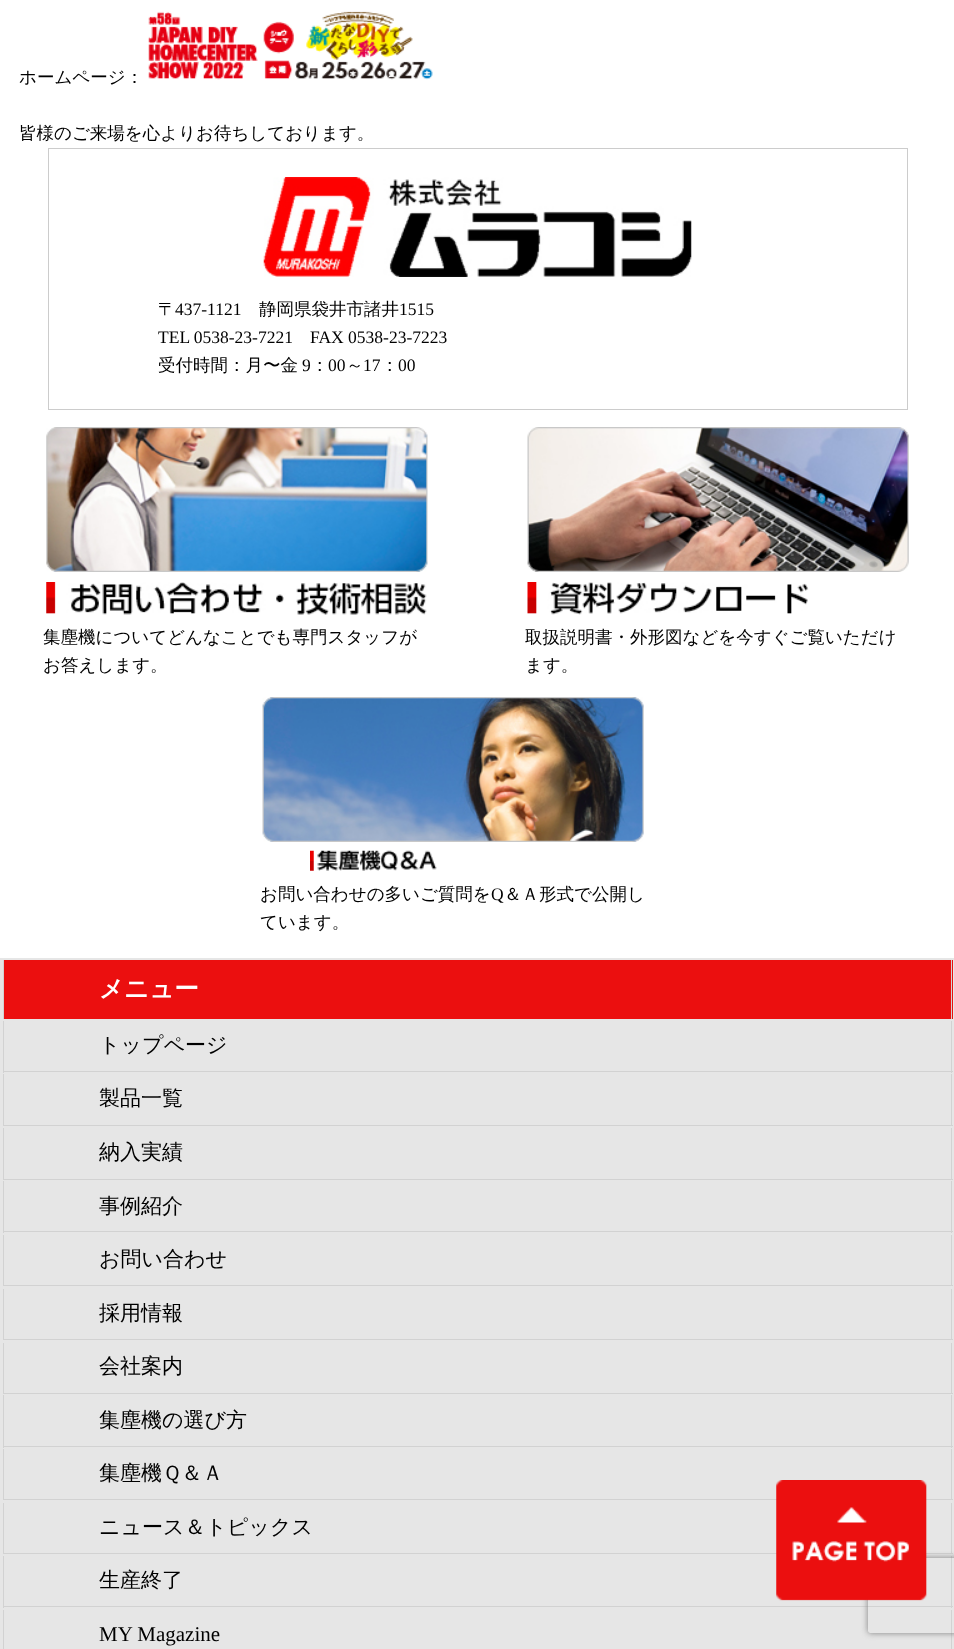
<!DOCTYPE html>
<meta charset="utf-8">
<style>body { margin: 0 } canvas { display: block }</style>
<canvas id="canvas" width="954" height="1649"></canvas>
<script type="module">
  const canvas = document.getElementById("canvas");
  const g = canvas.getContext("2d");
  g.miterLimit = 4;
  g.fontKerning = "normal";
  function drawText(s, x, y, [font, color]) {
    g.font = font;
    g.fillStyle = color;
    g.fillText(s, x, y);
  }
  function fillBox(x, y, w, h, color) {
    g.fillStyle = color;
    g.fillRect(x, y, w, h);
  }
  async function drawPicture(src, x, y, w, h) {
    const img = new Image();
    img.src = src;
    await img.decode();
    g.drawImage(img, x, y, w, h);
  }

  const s1 = ["500 17.5px WenQuanYi Zen Hei", "#000000"];
  const s2 = ["17.5px Liberation Serif", "#000000"];
  const s3 = ["bold 24.5px WenQuanYi Zen Hei", "#FFFFFF"];
  const s4 = ["500 21px WenQuanYi Zen Hei", "#000000"];
  const s5 = ["21px Liberation Serif", "#000000"];

  fillBox(0, 0, 954, 1649, "#FFFFFF");
  drawText("ホームページ：", 19, 83, s1);
  await drawPicture("pic1.png", 148, 11, 285, 69);
  drawText("皆様のご来場を心よりお待ちしております。", 19, 139, s1);
  fillBox(0, 958, 954, 691, "#E6E6E6");
  fillBox(951, 1449, 1, 51, "#D2D2D2");
  fillBox(3, 1499, 950, 1, "#D2D2D2");
  fillBox(951, 1503, 1, 51, "#D2D2D2");
  fillBox(3, 1553, 950, 1, "#D2D2D2");
  fillBox(951, 1556, 1, 52, "#D2D2D2");
  fillBox(3, 1606, 950, 1, "#D2D2D2");
  fillBox(951, 1610, 1, 39, "#D2D2D2");
  g.save();
  g.beginPath();
  g.moveTo(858, 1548);
  g.lineTo(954, 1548);
  g.lineTo(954, 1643);
  g.lineTo(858, 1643);
  g.closePath();
  g.moveTo(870.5, 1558);
  g.lineTo(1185.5, 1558);
  g.bezierCurveTo(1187, 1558, 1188, 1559, 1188, 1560.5);
  g.lineTo(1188, 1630.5);
  g.bezierCurveTo(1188, 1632, 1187, 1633, 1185.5, 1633);
  g.lineTo(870.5, 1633);
  g.bezierCurveTo(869, 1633, 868, 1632, 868, 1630.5);
  g.lineTo(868, 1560.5);
  g.bezierCurveTo(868, 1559, 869, 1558, 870.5, 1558);
  g.closePath();
  g.clip("evenodd");
  g.fillStyle = "#808080";
  g.filter = "blur(3px)";
  g.beginPath();
  g.roundRect(868, 1558, 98, 75, 2.5);
  g.fill();
  g.filter = "none";
  g.restore();
  await drawPicture("pic2.png", 776, 1480, 151, 121);
  g.strokeStyle = "#CCCCCC";
  g.strokeRect(48.5, 148.5, 859, 261);
  await drawPicture("pic3.png", 263, 177, 429, 100);
  drawText("〒", 158, 315, s1);
  drawText("437-1121", 175, 315, s2);
  drawText("静岡県袋井市諸井", 259, 315, s1);
  drawText("1515", 399, 315, s2);
  drawText("TEL 0538-23-7221", 158, 343, s2);
  drawText("FAX 0538-23-7223", 310, 343, s2);
  drawText("受付時間：月〜金", 158, 371, s1);
  drawText("9", 302, 371, s2);
  drawText("：", 311, 371, s1);
  drawText("00", 328, 371, s2);
  drawText("～", 346, 371, s1);
  drawText("17", 363, 371, s2);
  drawText("：", 381, 371, s1);
  drawText("00", 398, 371, s2);
  await drawPicture("pic4.png", 46, 427, 382, 145);
  await drawPicture("pic5.png", 46, 582, 381, 33);
  drawText("集塵機についてどんなことでも専門スタッフが", 43, 643, s1);
  drawText("お答えします。", 43, 671, s1);
  await drawPicture("pic6.png", 527, 427, 382, 145);
  await drawPicture("pic7.png", 527, 582, 282, 33);
  drawText("取扱説明書・外形図などを今すぐご覧いただけ", 525, 643, s1);
  drawText("ます。", 525, 671, s1);
  await drawPicture("pic8.png", 262, 697, 382, 145);
  await drawPicture("pic9.png", 310, 850, 127, 21);
  drawText("お問い合わせの多いご質問を", 260, 900, s1);
  drawText("Q", 491, 900, s2);
  drawText("＆Ａ形式で公開し", 504, 900, s1);
  drawText("ています。", 260, 928, s1);
  fillBox(4, 960, 949, 59, "#EB0F0F");
  fillBox(951, 960, 1, 59, "#D2D2D2");
  fillBox(3, 960, 1, 59, "#D2D2D2");
  drawText("メニュー", 99, 997, s3);
  fillBox(951, 1021, 1, 52, "#D2D2D2");
  fillBox(3, 1071, 950, 1, "#D2D2D2");
  fillBox(3, 1021, 1, 52, "#D2D2D2");
  drawText("トップページ", 99, 1052, s4);
  fillBox(951, 1074, 1, 52, "#D2D2D2");
  fillBox(3, 1125, 950, 1, "#D2D2D2");
  fillBox(3, 1074, 1, 52, "#D2D2D2");
  drawText("製品一覧", 99, 1105, s4);
  fillBox(951, 1128, 1, 52, "#D2D2D2");
  fillBox(3, 1179, 950, 1, "#D2D2D2");
  fillBox(3, 1128, 1, 52, "#D2D2D2");
  drawText("納入実績", 99, 1159, s4);
  fillBox(951, 1181, 1, 52, "#D2D2D2");
  fillBox(3, 1231, 950, 1, "#D2D2D2");
  fillBox(3, 1181, 1, 52, "#D2D2D2");
  drawText("事例紹介", 99, 1213, s4);
  fillBox(951, 1235, 1, 51, "#D2D2D2");
  fillBox(3, 1285, 950, 1, "#D2D2D2");
  fillBox(3, 1235, 1, 51, "#D2D2D2");
  drawText("お問い合わせ", 99, 1266, s4);
  fillBox(951, 1289, 1, 51, "#D2D2D2");
  fillBox(3, 1339, 950, 1, "#D2D2D2");
  fillBox(3, 1289, 1, 51, "#D2D2D2");
  drawText("採用情報", 99, 1320, s4);
  fillBox(951, 1343, 1, 51, "#D2D2D2");
  fillBox(3, 1393, 950, 1, "#D2D2D2");
  fillBox(3, 1343, 1, 51, "#D2D2D2");
  drawText("会社案内", 99, 1373, s4);
  fillBox(951, 1395, 1, 53, "#D2D2D2");
  fillBox(3, 1446, 950, 1, "#D2D2D2");
  fillBox(3, 1395, 1, 53, "#D2D2D2");
  drawText("集塵機の選び方", 99, 1427, s4);
  fillBox(3, 1449, 1, 51, "#D2D2D2");
  drawText("集塵機Ｑ＆Ａ", 99, 1480, s4);
  fillBox(3, 1503, 1, 51, "#D2D2D2");
  drawText("ニュース＆トピックス", 99, 1534, s4);
  fillBox(3, 1556, 1, 52, "#D2D2D2");
  drawText("生産終了", 99, 1587, s4);
  fillBox(3, 1610, 1, 39, "#D2D2D2");
  drawText("MY Magazine", 99, 1641, s5);
</script>
